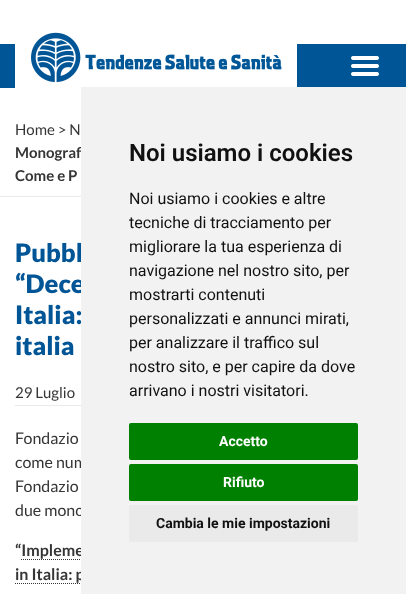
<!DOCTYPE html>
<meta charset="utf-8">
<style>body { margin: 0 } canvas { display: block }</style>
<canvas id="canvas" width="406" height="594"></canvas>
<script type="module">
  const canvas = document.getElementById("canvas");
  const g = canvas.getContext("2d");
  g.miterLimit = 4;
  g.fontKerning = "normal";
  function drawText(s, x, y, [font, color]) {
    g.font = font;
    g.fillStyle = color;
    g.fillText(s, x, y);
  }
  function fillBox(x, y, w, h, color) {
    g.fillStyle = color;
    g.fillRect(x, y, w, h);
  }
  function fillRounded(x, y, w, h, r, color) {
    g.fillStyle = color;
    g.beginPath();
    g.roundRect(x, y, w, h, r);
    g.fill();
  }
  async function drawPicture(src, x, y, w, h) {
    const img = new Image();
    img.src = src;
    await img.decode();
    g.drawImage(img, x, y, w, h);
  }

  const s1 = ["15px Lato", "#353535"];
  const s2 = ["bold 15px Lato", "#353535"];
  const s3 = ["900 25.5px Lato", "#005596"];
  const s4 = ["16px Lato", "#353535"];
  const s5 = ["bold 16px Lato", "#353535"];
  const s6 = ["600 24px Roboto", "#111111"];
  const s7 = ["16px Roboto", "#111111"];
  const s8 = ["bold 14px Roboto", "#FFFFFF"];
  const s9 = ["bold 14px Roboto", "#111111"];

  fillBox(0, 0, 406, 594, "#FFFFFF");
  fillBox(0, 44, 406, 44, "#005596");
  fillBox(15, 44, 282, 44, "#FFFFFF");
  await drawPicture("pic1.png", 31, 32, 251, 51);
  await drawPicture("pic2.png", 351, 56, 28, 20);
  fillBox(0, 196, 81, 1, "#E7EBEE");
  drawText("Home > N", 15, 135, s1);
  drawText("Monograf", 15, 158, s2);
  drawText("Come e P", 15, 181, s2);
  drawText("Pubbl", 15, 262, s3);
  drawText("“Dece", 15, 293, s3);
  drawText("Italia:", 15, 324, s3);
  drawText("italia", 15, 355, s3);
  fillBox(15, 405, 66, 1, "#E7EBEE");
  drawText("29 Luglio", 15, 398, s1);
  drawText("Fondazio", 15, 444, s4);
  drawText("come num", 15, 468, s4);
  drawText("Fondazio", 15, 492, s4);
  drawText("due mono", 15, 516, s4);
  drawText("“Impleme", 15, 556, s5);
  g.beginPath();
  g.moveTo(21, 559.5);
  g.lineTo(384, 559.5);
  g.strokeStyle = "#353535";
  g.setLineDash([1, 1]);
  g.stroke();
  drawText("in Italia: p", 15, 580, s5);
  g.beginPath();
  g.moveTo(15, 583.5);
  g.lineTo(185, 583.5);
  g.stroke();
  fillBox(81, 87, 325, 507, "#F2F2F2");
  drawText("Noi usiamo i cookies", 129, 161, s6);
  drawText("Noi usiamo i cookies e altre", 129, 204, s7);
  drawText("tecniche di tracciamento per", 129, 228, s7);
  drawText("migliorare la tua esperienza di", 129, 252, s7);
  drawText("navigazione nel nostro sito, per", 129, 276, s7);
  drawText("mostrarti contenuti", 129, 300, s7);
  drawText("personalizzati e annunci mirati,", 129, 324, s7);
  drawText("per analizzare il traffico sul", 129, 348, s7);
  drawText("nostro sito, e per capire da dove", 129, 372, s7);
  drawText("arrivano i nostri visitatori.", 129, 396, s7);
  fillRounded(129, 423, 229, 37, 2, "#008000");
  drawText("Accetto", 219, 446, s8);
  fillRounded(129, 464, 229, 37, 2, "#008000");
  drawText("Rifiuto", 223, 487, s8);
  fillRounded(129, 505, 229, 37, 2, "#EAEAEA");
  drawText("Cambia le mie impostazioni", 156, 528, s9);
</script>
